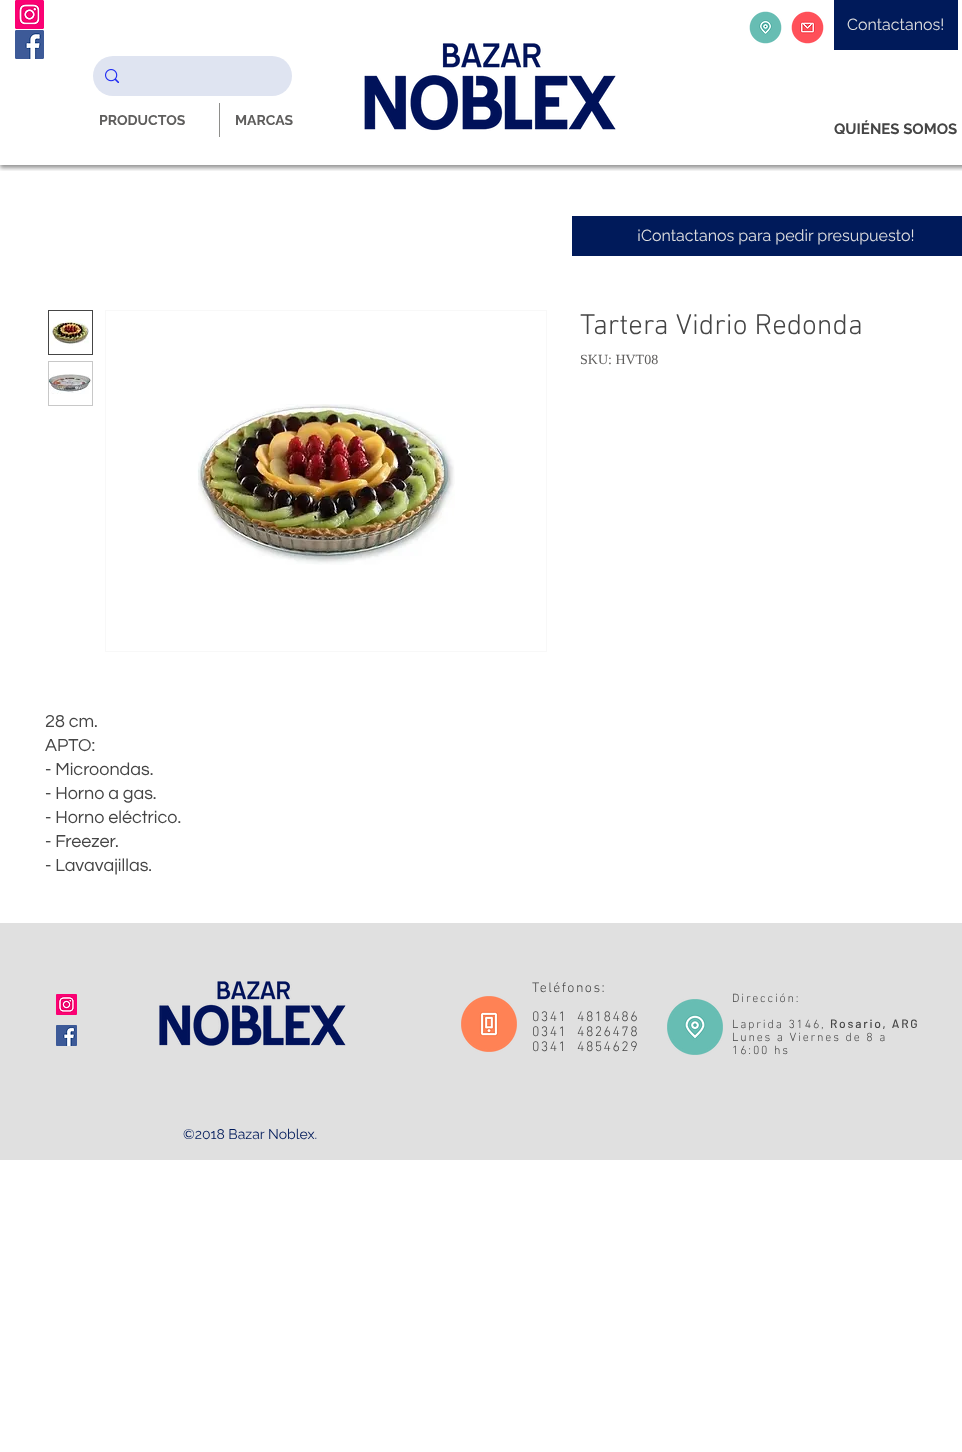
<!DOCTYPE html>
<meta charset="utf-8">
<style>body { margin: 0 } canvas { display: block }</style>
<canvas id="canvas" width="962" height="1452"></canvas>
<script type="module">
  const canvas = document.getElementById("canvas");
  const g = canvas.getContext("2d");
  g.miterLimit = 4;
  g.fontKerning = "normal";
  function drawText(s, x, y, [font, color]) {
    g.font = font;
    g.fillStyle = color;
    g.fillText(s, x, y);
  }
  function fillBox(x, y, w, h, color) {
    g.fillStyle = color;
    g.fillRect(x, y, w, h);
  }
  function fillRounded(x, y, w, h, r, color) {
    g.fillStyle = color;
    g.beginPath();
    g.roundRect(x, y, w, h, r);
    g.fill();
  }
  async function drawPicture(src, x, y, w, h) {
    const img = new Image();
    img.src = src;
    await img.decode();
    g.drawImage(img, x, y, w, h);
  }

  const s1 = ["16px Raleway", "#E0E0E0"];
  const s2 = ["bold 14px Raleway", "#5F5E5D"];
  const s3 = ["bold 15px Raleway", "#454545"];
  const s4 = ["300 29px 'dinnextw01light'", "#454545"];
  const s5 = ["14px Liberation Serif", "#5F5E5D"];
  const s6 = ["18px Questrial", "#454545"];
  const s7 = ["300 14px 'dinnextw01light'", "#454545"];
  const s8 = ["300 12px 'dinnextw01light'", "#454545"];
  const s9 = ["500 12px Barlow", "#454545"];
  const s10 = ["14px Raleway", "#001A5A"];

  fillBox(0, 0, 962, 1452, "#FFFFFF");
  g.save();
  g.beginPath();
  g.rect(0, 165, 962, 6);
  g.clip();
  g.fillStyle = "rgba(0, 0, 0, 0.42)";
  g.filter = "blur(2px)";
  g.beginPath();
  g.rect(0, 3, 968, 165);
  g.fill();
  g.filter = "none";
  g.restore();
  await drawPicture("pic1.png", 15, 0, 29, 29);
  await drawPicture("pic2.png", 15, 30, 29, 29);
  await drawPicture("pic3.png", 749, 11, 33, 33);
  await drawPicture("pic4.png", 791, 11, 33, 33);
  fillBox(834, 0, 124, 50, "#001A5A");
  drawText("Contactanos!", 847, 30, s1);
  fillRounded(93, 56, 199, 40, 20, "#DFE4F1");
  await drawPicture("pic5.png", 105, 69, 14, 14);
  await drawPicture("pic6.png", 364, 43, 252, 88);
  drawText("PRODUCTOS", 99, 125, s2);
  fillBox(219, 103, 1, 34, "#8E8E8B");
  drawText("MARCAS", 235, 125, s2);
  drawText("QUIÉNES SOMOS", 834, 134, s3);
  fillBox(572, 216, 390, 40, "#001A5A");
  drawText("¡Contactanos para pedir presupuesto!", 637, 241, s1);
  drawText("Tartera Vidrio Redonda", 580, 334, s4);
  drawText("SKU: HVT08", 580, 364, s5);
  g.strokeStyle = "#454545";
  g.strokeRect(48.5, 310.5, 44, 44);
  await drawPicture("pic7.png", 49, 319, 40, 27);
  g.strokeStyle = "#C8C8C8";
  g.strokeRect(48.5, 361.5, 44, 44);
  await drawPicture("pic8.png", 49, 374, 43, 20);
  g.strokeStyle = "#F8F8F8";
  g.strokeRect(105.5, 310.5, 441, 341);
  await drawPicture("pic9.png", 197, 404, 258, 161);
  drawText("28 cm.", 45, 727, s6);
  drawText("APTO:", 45, 751, s6);
  drawText("- Microondas.", 45, 775, s6);
  drawText("- Horno a gas.", 45, 799, s6);
  drawText("- Horno eléctrico.", 45, 823, s6);
  drawText("- Freezer.", 45, 847, s6);
  drawText("- Lavavajillas.", 45, 871, s6);
  fillBox(0, 923, 962, 237, "#E0E0E0");
  await drawPicture("pic10.png", 56, 994, 21, 21);
  await drawPicture("pic11.png", 56, 1025, 21, 21);
  await drawPicture("pic12.png", 159, 981, 187, 65);
  await drawPicture("pic13.png", 461, 996, 56, 56);
  g.letterSpacing = "1.4px";
  drawText("Teléfonos:", 532, 992, s7);
  drawText("0341  4818486", 532, 1021, s7);
  drawText("0341  4826478", 532, 1036, s7);
  drawText("0341  4854629", 532, 1051, s7);
  await drawPicture("pic14.png", 667, 999, 56, 56);
  g.letterSpacing = "1.8px";
  drawText("Dirección:", 732, 1002, s8);
  drawText("Laprida 3146,", 732, 1028, s8);
  drawText("Rosario, ARG", 830, 1028, s9);
  drawText("Lunes a Viernes de 8 a", 732, 1041, s8);
  drawText("16:00 hs", 732, 1054, s8);
  g.letterSpacing = "0px";
  drawText("©2018 Bazar Noblex.", 183, 1139, s10);
</script>
